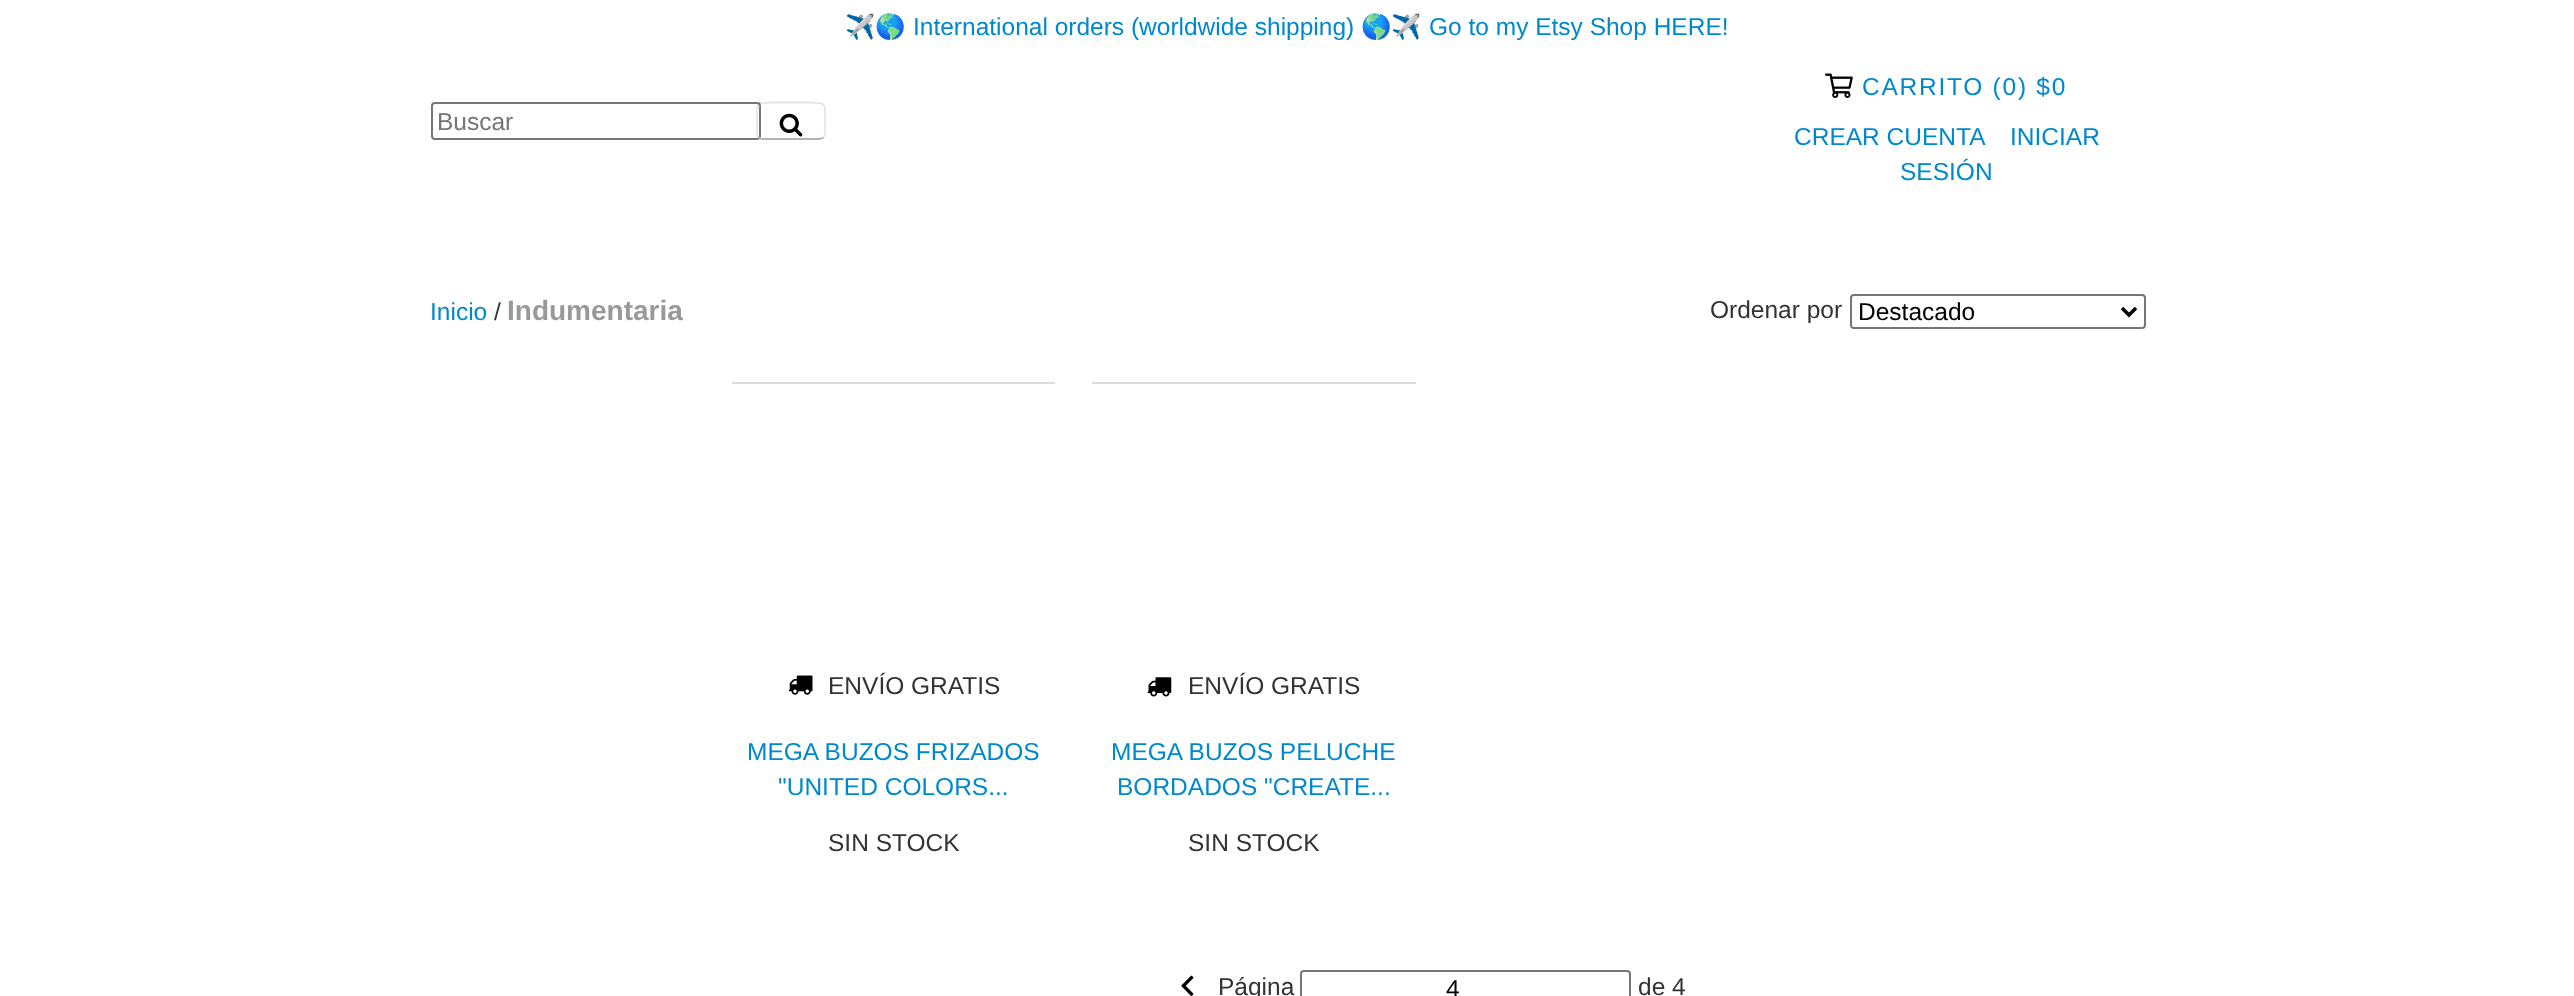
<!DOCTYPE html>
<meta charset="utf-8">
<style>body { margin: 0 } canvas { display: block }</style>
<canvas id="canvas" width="2574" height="996"></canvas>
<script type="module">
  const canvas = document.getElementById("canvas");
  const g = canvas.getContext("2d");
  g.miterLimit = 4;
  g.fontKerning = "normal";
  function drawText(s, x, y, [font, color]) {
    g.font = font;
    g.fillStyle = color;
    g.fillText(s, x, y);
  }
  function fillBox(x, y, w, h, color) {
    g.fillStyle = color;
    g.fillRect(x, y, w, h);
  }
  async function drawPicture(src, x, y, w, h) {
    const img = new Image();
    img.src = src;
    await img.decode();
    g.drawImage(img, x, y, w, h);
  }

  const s1 = ["24.5px Noto Color Emoji", "#0088CC"];
  const s2 = ["24.5px Liberation Sans", "#0088CC"];
  const s3 = ["24.5px Liberation Sans", "#757575"];
  const s4 = ["24.5px Liberation Sans", "#333333"];
  const s5 = ["bold 28px Liberation Sans", "#999999"];
  const s6 = ["24.5px Liberation Sans", "#000000"];

  fillBox(0, 0, 2574, 996, "#FFFFFF");
  drawText("✈️🌎", 845, 35, s1);
  drawText("International orders (worldwide shipping)", 913, 35, s2);
  drawText("🌎✈️", 1361, 35, s1);
  drawText("Go to my Etsy Shop HERE!", 1429, 35, s2);
  g.beginPath();
  g.roundRect(432, 103, 328, 36, 3);
  g.strokeStyle = "#767676";
  g.lineWidth = 2;
  g.stroke();
  drawText("Buscar", 437, 130, s3);
  g.fillStyle = "rgba(255, 255, 255, 0.2)";
  g.beginPath();
  g.moveTo(763, 105);
  g.lineTo(819, 105);
  g.bezierCurveTo(822, 105, 824, 107, 824, 110);
  g.bezierCurveTo(824, 101, 817, 103, 810, 103);
  g.lineTo(772, 103);
  g.bezierCurveTo(765, 103, 758, 101, 758, 110);
  g.bezierCurveTo(758, 107, 760, 105, 763, 105);
  g.closePath();
  g.fill();
  g.beginPath();
  g.moveTo(823.5, 137.5);
  g.bezierCurveTo(822, 138.5, 820.5, 139, 819, 139);
  g.lineTo(763, 139);
  g.bezierCurveTo(761.5, 139, 760, 138.5, 758.5, 137.5);
  g.strokeStyle = "#B3B3B3";
  g.lineWidth = 1.8;
  g.stroke();
  g.beginPath();
  g.moveTo(758.5, 137.5);
  g.bezierCurveTo(755.5, 134, 757, 125, 757, 121);
  g.bezierCurveTo(757, 103, 754.5, 102.5, 772.5, 102.5);
  g.lineTo(809.5, 102.5);
  g.bezierCurveTo(827.5, 102.5, 825, 103, 825, 121);
  g.bezierCurveTo(825, 125, 826.5, 134, 823.5, 137.5);
  g.strokeStyle = "rgba(0, 0, 0, 0.1)";
  g.stroke();
  await drawPicture("pic1.png", 779, 113, 24, 24);
  await drawPicture("pic2.png", 1825, 73, 28, 25);
  g.letterSpacing = "1.75px";
  drawText("CARRITO (0) $0", 1862, 95, s2);
  g.letterSpacing = "0px";
  drawText("CREAR CUENTA", 1794, 145, s2);
  drawText("INICIAR", 2010, 145, s2);
  drawText("SESIÓN", 1900, 180, s2);
  drawText("Inicio", 430, 320, s2);
  drawText("/", 494, 320, s4);
  drawText("Indumentaria", 507, 320, s5);
  drawText("Ordenar por", 1710, 318, s4);
  g.beginPath();
  g.roundRect(1851, 295, 294, 33, 3);
  g.strokeStyle = "#767676";
  g.lineWidth = 2;
  g.stroke();
  g.beginPath();
  g.moveTo(2122, 308);
  g.lineTo(2129, 315);
  g.lineTo(2136, 308);
  g.strokeStyle = "#000000";
  g.lineWidth = 3.5;
  g.stroke();
  drawText("Destacado", 1858, 320, s6);
  fillBox(732, 382, 323, 2, "#DCDCDC");
  await drawPicture("pic3.png", 788, 675, 25, 20);
  drawText("ENVÍO GRATIS", 828, 694, s4);
  drawText("MEGA BUZOS FRIZADOS", 747, 760, s2);
  drawText("\"UNITED COLORS...", 778, 795, s2);
  drawText("SIN STOCK", 828, 851, s4);
  fillBox(1092, 382, 324, 2, "#DCDCDC");
  await drawPicture("pic4.png", 1147, 677, 25, 20);
  drawText("ENVÍO GRATIS", 1188, 694, s4);
  drawText("MEGA BUZOS PELUCHE", 1111, 760, s2);
  drawText("BORDADOS \"CREATE...", 1117, 795, s2);
  drawText("SIN STOCK", 1188, 851, s4);
  await drawPicture("pic5.png", 1181, 975, 13, 21);
  drawText("Página", 1218, 995, s4);
  g.beginPath();
  g.roundRect(1301, 971, 329, 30, 3);
  g.strokeStyle = "#767676";
  g.lineWidth = 2;
  g.stroke();
  drawText("4", 1446, 997, s6);
  drawText("de 4", 1638, 995, s4);
</script>
